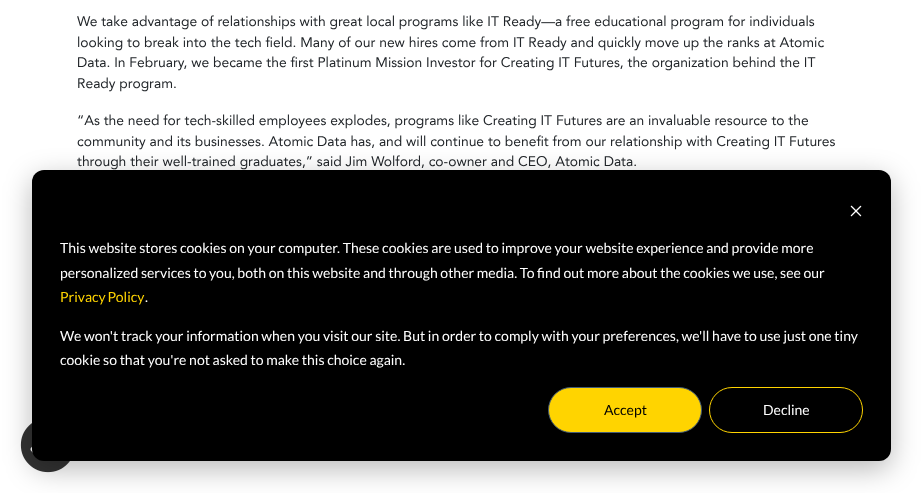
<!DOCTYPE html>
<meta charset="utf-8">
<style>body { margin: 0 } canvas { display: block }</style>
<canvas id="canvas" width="923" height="493"></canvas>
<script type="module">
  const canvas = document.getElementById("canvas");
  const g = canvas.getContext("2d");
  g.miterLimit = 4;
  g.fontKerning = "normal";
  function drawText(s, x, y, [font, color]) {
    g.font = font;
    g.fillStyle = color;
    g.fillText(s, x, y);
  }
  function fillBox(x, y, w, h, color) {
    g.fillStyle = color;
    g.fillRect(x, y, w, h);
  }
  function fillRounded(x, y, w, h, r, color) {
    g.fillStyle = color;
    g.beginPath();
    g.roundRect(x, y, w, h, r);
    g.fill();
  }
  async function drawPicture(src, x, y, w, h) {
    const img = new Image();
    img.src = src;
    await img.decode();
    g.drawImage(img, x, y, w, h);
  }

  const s1 = ["13.85px Avenir", "#212529"];
  const s2 = ["14px Lato", "#FFFFFF"];
  const s3 = ["14px Lato", "#FFD400"];
  const s4 = ["14px Lato", "#000000"];

  fillBox(0, 0, 923, 493, "#FFFFFF");
  drawText("We take advantage of relationships with great local programs like IT Ready—a free educational program for individuals", 77, 26, s1);
  drawText("looking to break into the tech field. Many of our new hires come from IT Ready and quickly move up the ranks at Atomic", 77, 47, s1);
  drawText("Data. In February, we became the first Platinum Mission Investor for Creating IT Futures, the organization behind the IT", 77, 67, s1);
  drawText("Ready program.", 77, 88, s1);
  drawText("“As the need for tech-skilled employees explodes, programs like Creating IT Futures are an invaluable resource to the", 77, 125, s1);
  drawText("community and its businesses. Atomic Data has, and will continue to benefit from our relationship with Creating IT Futures", 77, 146, s1);
  drawText("through their well-trained graduates,” said Jim Wolford, co-owner and CEO, Atomic Data.", 77, 166, s1);
  await drawPicture("pic2.png", 20, 423, 50, 50);
  g.fillStyle = "rgba(0, 0, 0, 0.28)";
  g.filter = "blur(14px)";
  g.beginPath();
  g.roundRect(32, 178, 859, 291, 12);
  g.fill();
  g.filter = "none";
  fillRounded(32, 170, 859, 291, 12, "#000000");
  await drawPicture("pic1.png", 850, 205, 12, 12);
  drawText("This website stores cookies on your computer. These cookies are used to improve your website experience and provide more", 60, 253, s2);
  drawText("personalized services to you, both on this website and through other media. To find out more about the cookies we use, see our", 60, 278, s2);
  g.wordSpacing = "-1px";
  drawText("Privacy Policy", 60, 302, s3);
  g.wordSpacing = "0px";
  drawText(".", 145, 302, s2);
  drawText("We won't track your information when you visit our site. But in order to comply with your preferences, we'll have to use just one tiny", 60, 341, s2);
  drawText("cookie so that you're not asked to make this choice again.", 60, 365, s2);
  g.fillStyle = "#FFD400";
  g.beginPath();
  g.roundRect(548.5, 387.5, 153, 45, 22.5);
  g.fill();
  g.strokeStyle = "#425B76";
  g.stroke();
  drawText("Accept", 604, 415, s4);
  g.beginPath();
  g.roundRect(709.5, 387.5, 153, 45, 22.5);
  g.strokeStyle = "#FFD400";
  g.stroke();
  drawText("Decline", 763, 415, s2);
</script>
